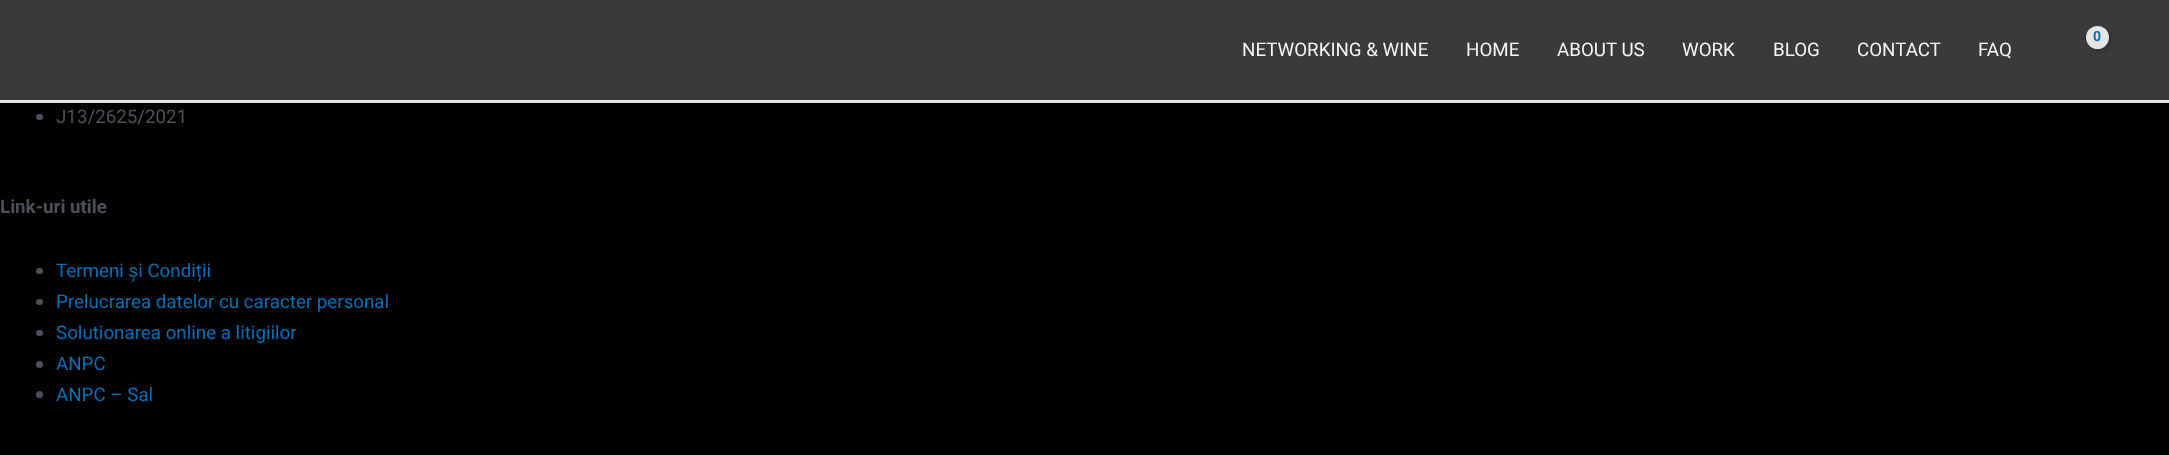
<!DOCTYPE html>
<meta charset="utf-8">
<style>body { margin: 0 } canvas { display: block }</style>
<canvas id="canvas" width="2169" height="455"></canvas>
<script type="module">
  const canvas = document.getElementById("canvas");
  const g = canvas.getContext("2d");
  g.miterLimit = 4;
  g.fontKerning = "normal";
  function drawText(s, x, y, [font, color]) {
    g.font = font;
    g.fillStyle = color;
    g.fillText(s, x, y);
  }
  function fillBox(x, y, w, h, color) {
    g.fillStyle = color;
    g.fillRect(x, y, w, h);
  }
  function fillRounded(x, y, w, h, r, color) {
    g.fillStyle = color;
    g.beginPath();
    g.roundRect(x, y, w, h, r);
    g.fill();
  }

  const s1 = ["bold 14px Roboto", "#0170B9"];
  const s2 = ["18.75px Roboto", "#F5F5F5"];
  const s3 = ["18.75px Roboto", "#4B4F58"];
  const s4 = ["bold 18.75px Roboto", "#4B4F58"];
  const s5 = ["18.75px Roboto", "#0170B9"];

  fillBox(0, 0, 2169, 455, "#000000");
  fillBox(0, 0, 2169, 100, "#3A3A3A");
  fillBox(0, 100, 2169, 3, "#E5E5E5");
  g.fillStyle = "rgba(0, 0, 0, 0.3)";
  g.filter = "blur(2px)";
  g.beginPath();
  g.roundRect(2088, 28, 22, 22, 11);
  g.fill();
  g.filter = "none";
  g.fillStyle = "#E5E5E5";
  g.beginPath();
  g.arc(2097.5, 37.5, 11.5, 0, Math.PI * 2);
  g.fill();
  g.letterSpacing = "-1px";
  drawText("0", 2093, 41, s1);
  g.letterSpacing = "0px";
  drawText("NETWORKING & WINE", 1242, 56, s2);
  drawText("HOME", 1466, 56, s2);
  drawText("ABOUT US", 1557, 56, s2);
  drawText("WORK", 1682, 56, s2);
  drawText("BLOG", 1773, 56, s2);
  drawText("CONTACT", 1857, 56, s2);
  drawText("FAQ", 1978, 56, s2);
  fillRounded(36, 114, 7, 6, 3, "#4B4F58");
  drawText("J13/2625/2021", 56, 123, s3);
  drawText("Link-uri utile", 0, 213, s4);
  fillRounded(36, 268, 7, 6, 3, "#4B4F58");
  drawText("Termeni și Condiții", 56, 277, s5);
  fillRounded(36, 299, 7, 6, 3, "#4B4F58");
  drawText("Prelucrarea datelor cu caracter personal", 56, 308, s5);
  fillRounded(36, 330, 7, 6, 3, "#4B4F58");
  drawText("Solutionarea online a litigiilor", 56, 339, s5);
  g.fillStyle = "#4B4F58";
  g.beginPath();
  g.arc(39.5, 364.5, 3.5, 0, Math.PI * 2);
  g.fill();
  drawText("ANPC", 56, 370, s5);
  g.fillStyle = "#4B4F58";
  g.beginPath();
  g.arc(39.5, 394.5, 3.5, 0, Math.PI * 2);
  g.fill();
  drawText("ANPC – Sal", 56, 401, s5);
</script>
